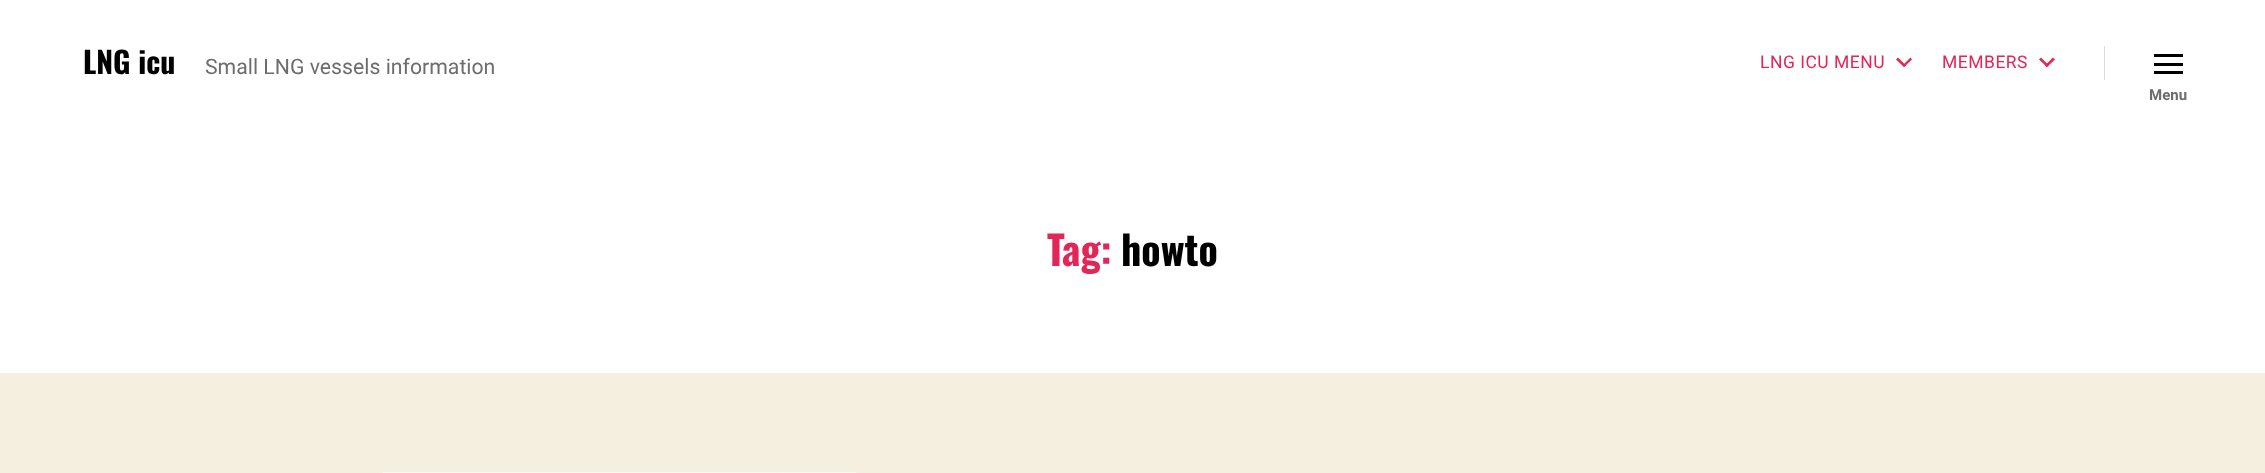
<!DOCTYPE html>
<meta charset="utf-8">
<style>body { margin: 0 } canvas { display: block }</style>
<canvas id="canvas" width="2265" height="473"></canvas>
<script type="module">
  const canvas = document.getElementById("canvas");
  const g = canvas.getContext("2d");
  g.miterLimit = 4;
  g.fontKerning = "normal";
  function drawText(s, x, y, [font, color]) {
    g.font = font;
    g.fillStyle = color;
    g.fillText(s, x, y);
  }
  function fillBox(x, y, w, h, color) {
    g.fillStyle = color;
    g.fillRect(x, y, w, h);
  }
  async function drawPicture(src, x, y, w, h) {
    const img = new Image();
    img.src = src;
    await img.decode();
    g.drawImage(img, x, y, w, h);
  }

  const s1 = ["bold 30px Oswald", "#000000"];
  const s2 = ["21.25px Roboto", "#6D6D6D"];
  const s3 = ["17.5px Roboto", "#E22658"];
  const s4 = ["bold 15px Roboto", "#6D6D6D"];
  const s5 = ["bold 40px Oswald", "#E22658"];
  const s6 = ["bold 40px Oswald", "#000000"];

  fillBox(0, 0, 2265, 473, "#F5EFE0");
  fillBox(0, 0, 2265, 373, "#FFFFFF");
  drawText("LNG icu", 83, 74, s1);
  drawText("Small LNG vessels information", 205, 74, s2);
  g.letterSpacing = "0.5px";
  drawText("LNG ICU MENU", 1760, 68, s3);
  g.beginPath();
  g.moveTo(1896, 59.5);
  g.lineTo(1898, 57.5);
  g.lineTo(1906, 65.5);
  g.lineTo(1904, 67);
  g.closePath();
  g.fill();
  g.beginPath();
  g.moveTo(1902.5, 65.5);
  g.lineTo(1910.5, 57.5);
  g.lineTo(1912, 59.5);
  g.lineTo(1904, 67);
  g.closePath();
  g.fill();
  drawText("MEMBERS", 1942, 68, s3);
  g.beginPath();
  g.moveTo(2039, 59.5);
  g.lineTo(2041, 57.5);
  g.lineTo(2049, 65.5);
  g.lineTo(2047, 67);
  g.closePath();
  g.fill();
  g.beginPath();
  g.moveTo(2045, 65.5);
  g.lineTo(2053, 57.5);
  g.lineTo(2055, 59.5);
  g.lineTo(2047, 67);
  g.closePath();
  g.fill();
  fillBox(2104, 46, 1, 34, "#DBDBDB");
  fillBox(2154, 54, 29, 3, "#000000");
  fillBox(2154, 71, 29, 3, "#000000");
  fillBox(2154, 63, 29, 3, "#000000");
  g.letterSpacing = "0px";
  drawText("Menu", 2149, 100, s4);
  drawText("Tag:", 1047, 266, s5);
  drawText("howto", 1121, 266, s6);
  await drawPicture("pic1.png", 382, 472, 475, 1);
</script>
